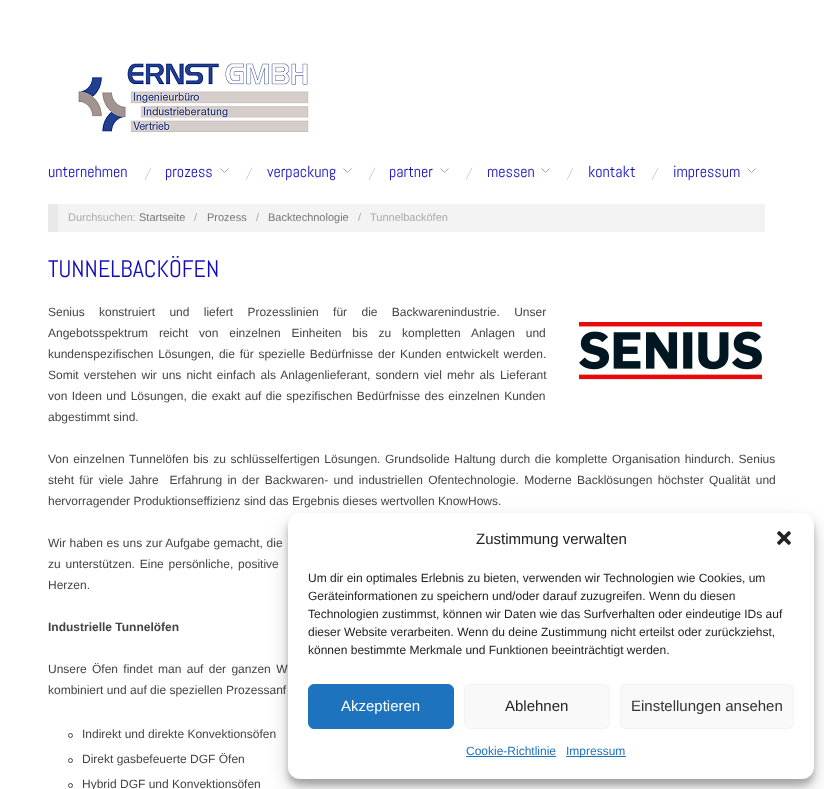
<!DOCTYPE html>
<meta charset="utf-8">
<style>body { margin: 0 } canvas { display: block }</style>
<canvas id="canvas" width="824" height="789"></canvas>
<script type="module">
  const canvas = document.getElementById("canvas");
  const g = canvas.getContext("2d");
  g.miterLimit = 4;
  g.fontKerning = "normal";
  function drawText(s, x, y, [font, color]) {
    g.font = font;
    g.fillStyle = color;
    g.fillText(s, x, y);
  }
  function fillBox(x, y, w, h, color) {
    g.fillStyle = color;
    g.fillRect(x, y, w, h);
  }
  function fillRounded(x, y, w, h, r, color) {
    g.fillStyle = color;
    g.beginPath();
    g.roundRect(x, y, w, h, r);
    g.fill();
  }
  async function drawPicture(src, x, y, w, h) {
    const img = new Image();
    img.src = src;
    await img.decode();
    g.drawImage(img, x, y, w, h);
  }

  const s1 = ["16px Abel", "#110BBF"];
  const s2 = ["11px Liberation Sans", "#AAAAAA"];
  const s3 = ["11px Liberation Sans", "#777777"];
  const s4 = ["24px Abel", "#110BBF"];
  const s5 = ["12px Liberation Sans", "#444444"];
  const s6 = ["bold 12px Liberation Sans", "#444444"];
  const s7 = ["15px Liberation Sans", "#222222"];
  const s8 = ["12px Liberation Sans", "#222222"];
  const s9 = ["15px Liberation Sans", "#FFFFFF"];
  const s10 = ["15px Liberation Sans", "#333333"];
  const s11 = ["12px Liberation Sans", "#1E73BE"];

  fillBox(0, 0, 824, 789, "#FFFFFF");
  await drawPicture("pic1.png", 78, 63, 231, 69);
  drawText("unternehmen", 48, 177, s1);
  await drawPicture("pic2.png", 144, 167, 8, 13);
  await drawPicture("pic3.png", 220, 168, 9, 5);
  drawText("prozess", 165, 177, s1);
  await drawPicture("pic2.png", 245, 167, 8, 13);
  await drawPicture("pic3.png", 343, 168, 9, 5);
  drawText("verpackung", 267, 177, s1);
  await drawPicture("pic2.png", 368, 167, 8, 13);
  await drawPicture("pic3.png", 440, 168, 9, 5);
  drawText("partner", 389, 177, s1);
  await drawPicture("pic2.png", 465, 167, 8, 13);
  await drawPicture("pic3.png", 541, 168, 9, 5);
  drawText("messen", 487, 177, s1);
  await drawPicture("pic2.png", 566, 167, 8, 13);
  drawText("kontakt", 588, 177, s1);
  await drawPicture("pic2.png", 651, 167, 8, 13);
  await drawPicture("pic3.png", 747, 168, 9, 5);
  drawText("impressum", 673, 177, s1);
  fillBox(58, 204, 707, 28, "#F3F3F3");
  fillBox(48, 204, 10, 28, "#E9E9E9");
  drawText("Durchsuchen:", 68, 221, s2);
  drawText("Startseite", 139, 221, s3);
  drawText("/", 194, 221, s2);
  drawText("Prozess", 207, 221, s3);
  drawText("/", 256, 221, s2);
  drawText("Backtechnologie", 268, 221, s3);
  drawText("/", 358, 221, s2);
  drawText("Tunnelbacköfen", 370, 221, s2);
  drawText("TUNNELBACKÖFEN", 48, 277, s4);
  g.wordSpacing = "11px";
  drawText("Senius konstruiert und liefert Prozesslinien für die Backwarenindustrie. Unser", 48, 316, s5);
  g.wordSpacing = "7.5px";
  drawText("Angebotsspektrum reicht von einzelnen Einheiten bis zu kompletten Anlagen und", 48, 337, s5);
  await drawPicture("pic4.png", 579, 322, 183, 58);
  g.wordSpacing = "1.4px";
  drawText("kundenspezifischen Lösungen, die für spezielle Bedürfnisse der Kunden entwickelt werden.", 48, 358, s5);
  g.wordSpacing = "1.75px";
  drawText("Somit verstehen wir uns nicht einfach als Anlagenlieferant, sondern viel mehr als Lieferant", 48, 379, s5);
  g.wordSpacing = "1.1px";
  drawText("von Ideen und Lösungen, die exakt auf die spezifischen Bedürfnisse des einzelnen Kunden", 48, 400, s5);
  g.wordSpacing = "0px";
  drawText("abgestimmt sind.", 48, 421, s5);
  g.wordSpacing = "1.25px";
  drawText("Von einzelnen Tunnelöfen bis zu schlüsselfertigen Lösungen. Grundsolide Haltung durch die komplette Organisation hindurch. Senius", 48, 463, s5);
  g.wordSpacing = "2px";
  drawText("steht für viele Jahre  Erfahrung in der Backwaren- und industriellen Ofentechnologie. Moderne Backlösungen höchster Qualität und", 48, 484, s5);
  g.wordSpacing = "0px";
  drawText("hervorragender Produktionseffizienz sind das Ergebnis dieses wertvollen KnowHows.", 48, 505, s5);
  g.wordSpacing = "0.25px";
  drawText("Wir haben es uns zur Aufgabe gemacht, die", 48, 547, s5);
  g.wordSpacing = "1.5px";
  drawText("zu unterstützen. Eine persönliche, positive", 48, 568, s5);
  g.wordSpacing = "0px";
  drawText("Herzen.", 48, 589, s5);
  drawText("Industrielle Tunnelöfen", 48, 631, s6);
  g.wordSpacing = "2px";
  drawText("Unsere Öfen findet man auf der ganzen W", 48, 673, s5);
  g.wordSpacing = "0px";
  drawText("kombiniert und auf die speziellen Prozessanf", 48, 694, s5);
  g.beginPath();
  g.arc(70.5, 735.5, 2, 0, Math.PI * 2);
  g.strokeStyle = "#444444";
  g.stroke();
  drawText("Indirekt und direkte Konvektionsöfen", 82, 738, s5);
  g.beginPath();
  g.arc(70.5, 760.5, 2, 0, Math.PI * 2);
  g.stroke();
  drawText("Direkt gasbefeuerte DGF Öfen", 82, 763, s5);
  g.beginPath();
  g.arc(70.5, 785.5, 2, 0, Math.PI * 2);
  g.stroke();
  drawText("Hybrid DGF und Konvektionsöfen", 82, 788, s5);
  g.fillStyle = "rgba(0, 0, 0, 0.23)";
  g.filter = "blur(3px)";
  g.beginPath();
  g.roundRect(288, 519, 526, 266, 12);
  g.fill();
  g.filter = "none";
  g.fillStyle = "rgba(0, 0, 0, 0.19)";
  g.filter = "blur(10px)";
  g.beginPath();
  g.roundRect(288, 523, 526, 266, 12);
  g.fill();
  g.filter = "none";
  fillRounded(288, 513, 526, 266, 12, "#FFFFFF");
  drawText("Zustimmung verwalten", 476, 544, s7);
  await drawPicture("pic5.png", 777, 531, 14, 14);
  drawText("Um dir ein optimales Erlebnis zu bieten, verwenden wir Technologien wie Cookies, um", 308, 582, s8);
  drawText("Geräteinformationen zu speichern und/oder darauf zuzugreifen. Wenn du diesen", 308, 600, s8);
  drawText("Technologien zustimmst, können wir Daten wie das Surfverhalten oder eindeutige IDs auf", 308, 618, s8);
  drawText("dieser Website verarbeiten. Wenn du deine Zustimmung nicht erteilst oder zurückziehst,", 308, 636, s8);
  drawText("können bestimmte Merkmale und Funktionen beeinträchtigt werden.", 308, 654, s8);
  g.fillStyle = "#1E73BE";
  g.beginPath();
  g.roundRect(308.5, 684.5, 145, 44, 5.5);
  g.fill();
  g.strokeStyle = "#1E73BE";
  g.stroke();
  drawText("Akzeptieren", 341, 711, s9);
  g.fillStyle = "#F9F9F9";
  g.beginPath();
  g.roundRect(464.5, 684.5, 145, 44, 5.5);
  g.fill();
  g.strokeStyle = "#F2F2F2";
  g.stroke();
  drawText("Ablehnen", 505, 711, s7);
  g.fillStyle = "#F9F9F9";
  g.beginPath();
  g.roundRect(620.5, 684.5, 173, 44, 5.5);
  g.fill();
  g.stroke();
  drawText("Einstellungen ansehen", 631, 711, s10);
  drawText("Cookie-Richtlinie", 466, 755, s11);
  fillBox(466, 756, 90, 1, "#1E73BE");
  fillBox(566, 756, 60, 1, "#1E73BE");
  drawText("Impressum", 566, 755, s11);
</script>
